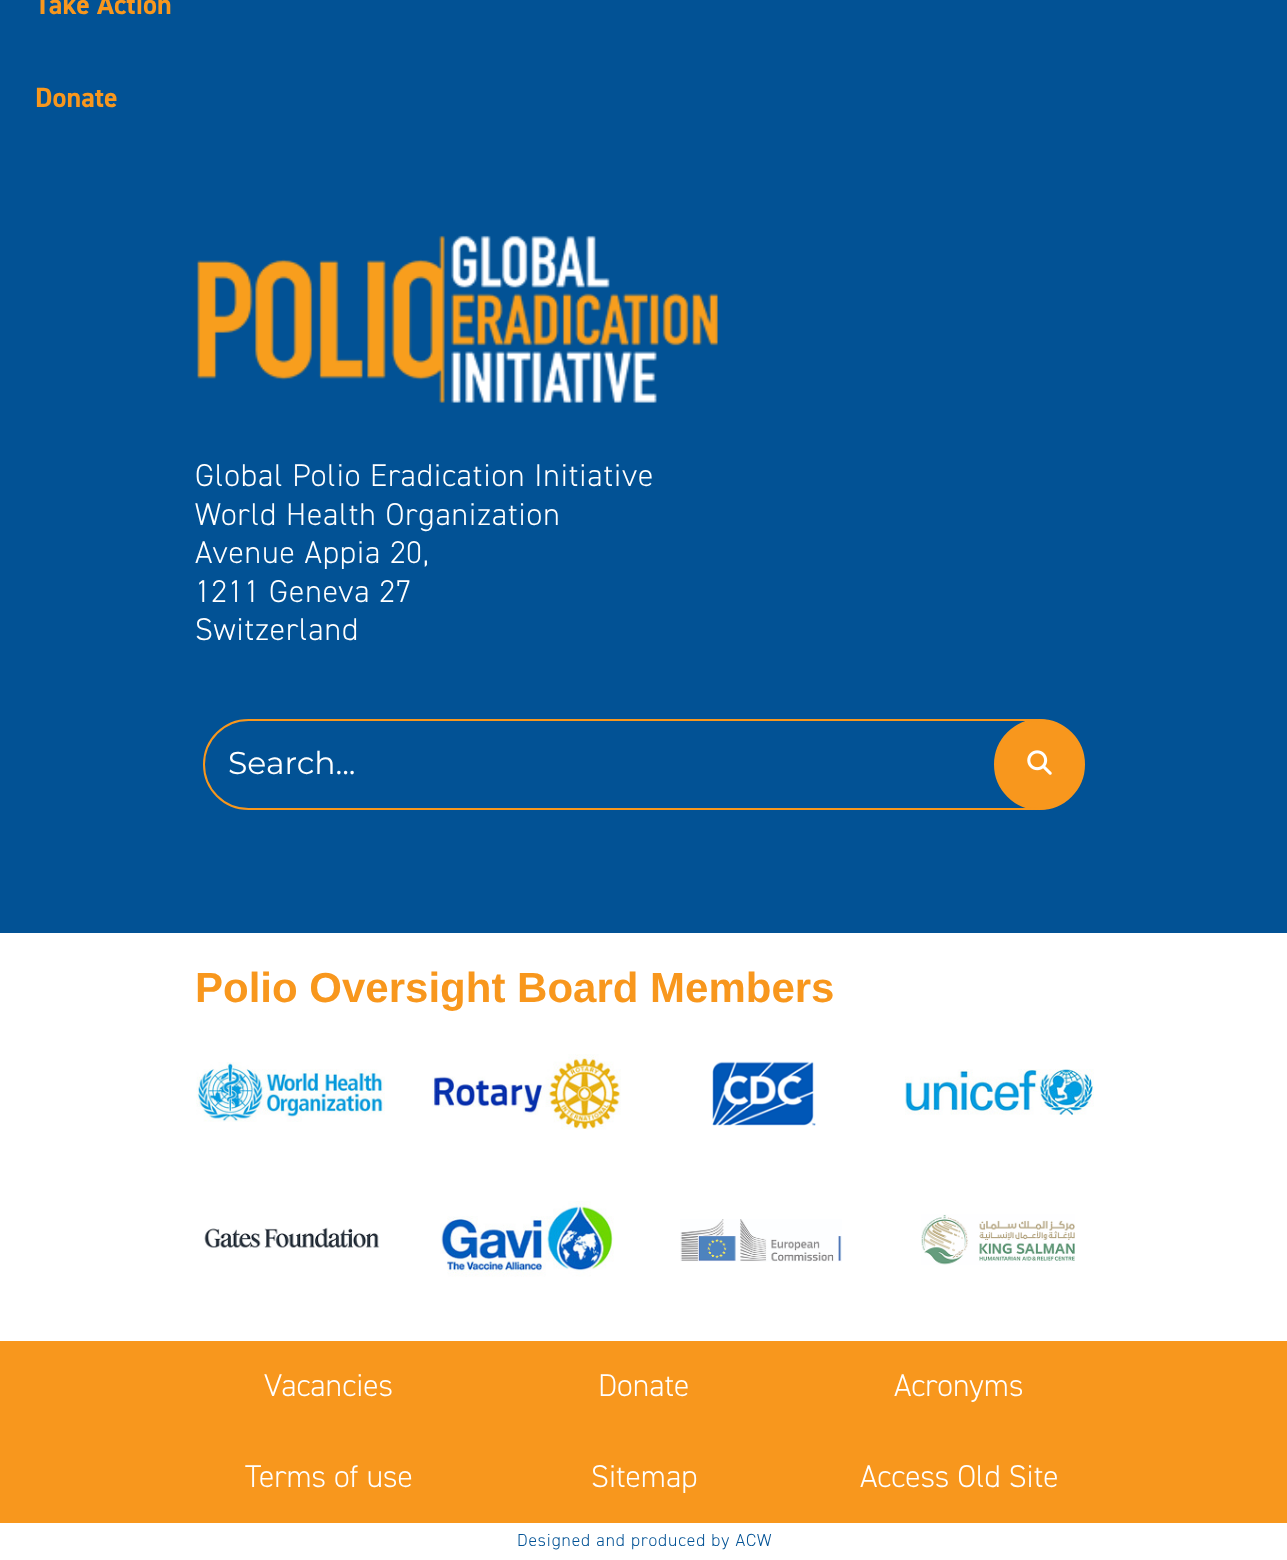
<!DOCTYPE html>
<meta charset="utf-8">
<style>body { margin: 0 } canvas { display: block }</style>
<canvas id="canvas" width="1287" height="1560"></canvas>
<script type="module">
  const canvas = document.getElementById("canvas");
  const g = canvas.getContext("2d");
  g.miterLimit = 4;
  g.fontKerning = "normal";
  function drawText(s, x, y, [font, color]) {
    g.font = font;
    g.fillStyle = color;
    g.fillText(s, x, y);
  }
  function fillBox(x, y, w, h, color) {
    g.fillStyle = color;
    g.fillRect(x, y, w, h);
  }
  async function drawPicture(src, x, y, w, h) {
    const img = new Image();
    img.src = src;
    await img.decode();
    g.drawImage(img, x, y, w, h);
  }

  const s1 = ["bold 28px 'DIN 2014'", "#F8971D"];
  const s2 = ["300 31.5px 'DIN 2014'", "#FFFFFF"];
  const s3 = ["31.5px Montserrat", "#FFFFFF"];
  const s4 = ["bold 42px Liberation Sans", "#F8971D"];
  const s5 = ["300 17.5px 'DIN 2014'", "#025295"];

  fillBox(0, 0, 1287, 1560, "#FFFFFF");
  fillBox(0, 0, 1287, 933, "#025295");
  drawText("Take Action", 35, 14, s1);
  drawText("Donate", 35, 107, s1);
  await drawPicture("pic1.png", 197, 235, 521, 168);
  g.letterSpacing = "0.9px";
  drawText("Global Polio Eradication Initiative", 195, 486, s2);
  drawText("World Health Organization", 195, 525, s2);
  drawText("Avenue Appia 20,", 195, 563, s2);
  drawText("1211 Geneva 27", 195, 602, s2);
  drawText("Switzerland", 195, 640, s2);
  g.beginPath();
  g.roundRect(204, 720, 877, 89, 44.5);
  g.strokeStyle = "#F8971D";
  g.lineWidth = 2;
  g.stroke();
  g.letterSpacing = "0px";
  drawText("Search...", 228, 774, s3);
  g.fillStyle = "#F8971D";
  g.beginPath();
  g.arc(1039.5, 764.5, 44.5, 0, Math.PI * 2);
  g.fill();
  g.stroke();
  await drawPicture("pic2.png", 1027, 750, 25, 25);
  drawText("Polio Oversight Board Members", 195, 1002, s4);
  await drawPicture("pic3.png", 196, 1062, 189, 60);
  await drawPicture("pic4.png", 432, 1054, 189, 76);
  await drawPicture("pic5.png", 712, 1061, 104, 65);
  await drawPicture("pic6.png", 905, 1069, 189, 46);
  await drawPicture("pic7.png", 204, 1227, 176, 21);
  await drawPicture("pic8.png", 440, 1201, 174, 76);
  await drawPicture("pic9.png", 680, 1219, 162, 43);
  await drawPicture("pic10.png", 921, 1214, 154, 51);
  fillBox(0, 1341, 1287, 182, "#F8971D");
  drawText("Vacancies", 264, 1396, s2);
  drawText("Donate", 598, 1396, s2);
  drawText("Acronyms", 894, 1396, s2);
  drawText("Terms of use", 245, 1487, s2);
  drawText("Sitemap", 591, 1487, s2);
  drawText("Access Old Site", 860, 1487, s2);
  g.letterSpacing = "0.9px";
  drawText("Designed and produced by ACW", 517, 1546, s5);
</script>
